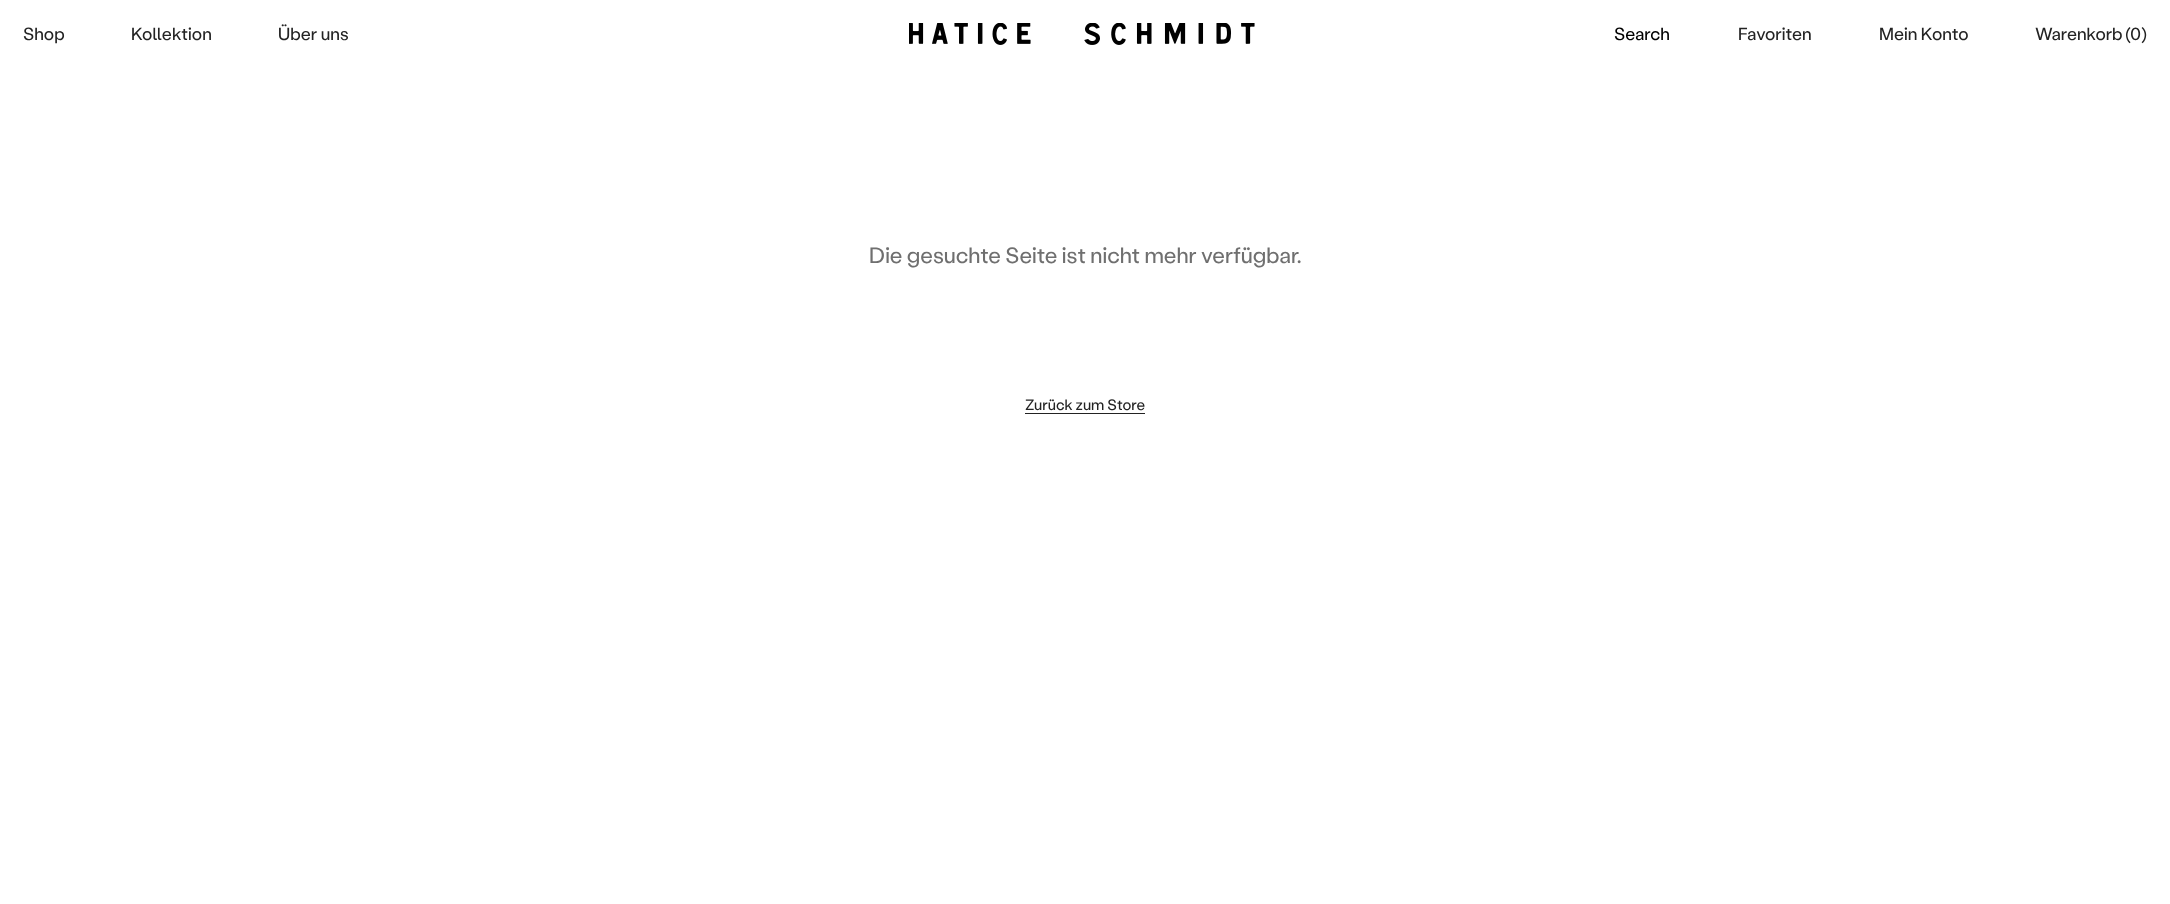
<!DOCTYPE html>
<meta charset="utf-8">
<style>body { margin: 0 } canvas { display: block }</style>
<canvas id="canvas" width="2170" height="904"></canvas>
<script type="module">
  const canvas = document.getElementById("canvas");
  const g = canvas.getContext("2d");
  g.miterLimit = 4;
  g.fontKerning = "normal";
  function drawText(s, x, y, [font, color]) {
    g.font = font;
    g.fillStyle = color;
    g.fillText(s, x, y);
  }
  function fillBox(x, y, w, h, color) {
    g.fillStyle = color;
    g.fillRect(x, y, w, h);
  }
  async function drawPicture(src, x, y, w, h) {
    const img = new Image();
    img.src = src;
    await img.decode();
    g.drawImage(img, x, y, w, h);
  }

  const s1 = ["17.5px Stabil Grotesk", "#232323"];
  const s2 = ["17.5px Stabil Grotesk", "#000000"];
  const s3 = ["22px Stabil Grotesk", "#6F6F6F"];
  const s4 = ["15px Stabil Grotesk", "#232323"];

  fillBox(0, 0, 2170, 904, "#FFFFFF");
  drawText("Shop", 23, 40, s1);
  drawText("Kollektion", 131, 40, s1);
  drawText("Über uns", 278, 40, s1);
  await drawPicture("pic1.png", 909, 23, 346, 22);
  drawText("Search", 1614, 40, s2);
  drawText("Favoriten", 1738, 40, s1);
  drawText("Mein Konto", 1879, 40, s1);
  drawText("Warenkorb", 2035, 40, s1);
  drawText("(0", 2125, 40, s1);
  drawText(")", 2141, 40, s1);
  drawText("Die gesuchte Seite ist nicht mehr verfügbar.", 869, 263, s3);
  drawText("Zurück zum Store", 1025, 410, s4);
  fillBox(1025, 413, 120, 1, "#232323");
</script>
